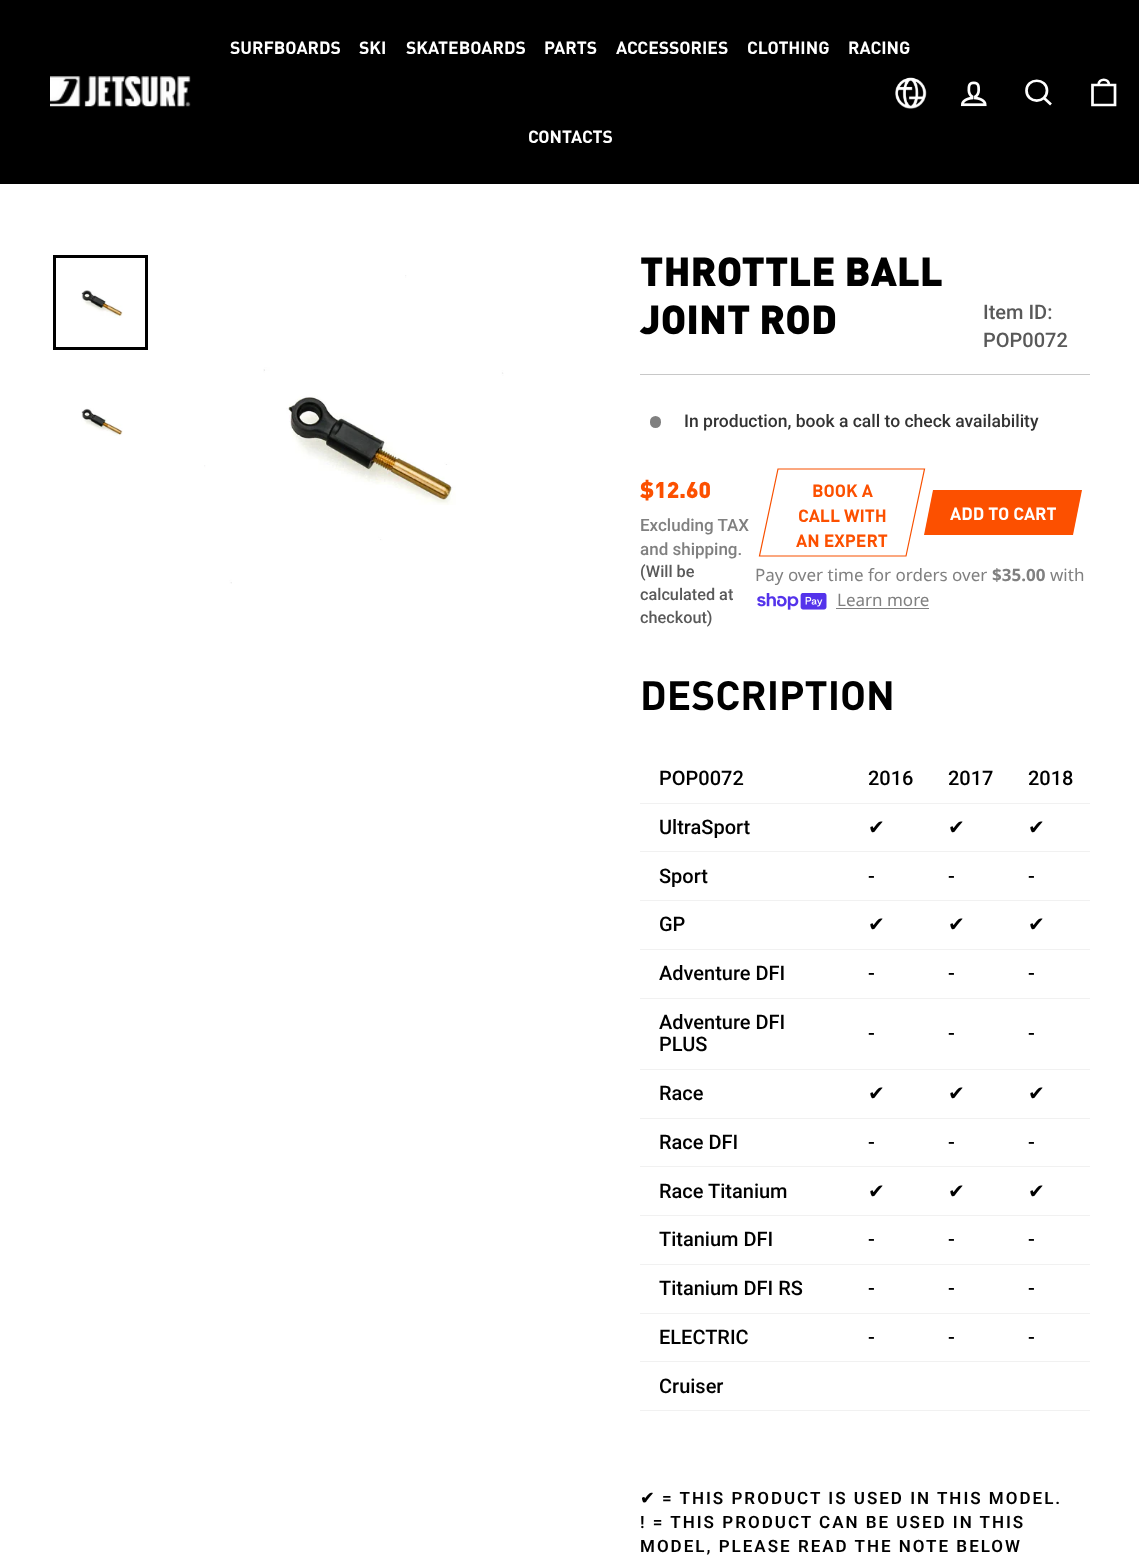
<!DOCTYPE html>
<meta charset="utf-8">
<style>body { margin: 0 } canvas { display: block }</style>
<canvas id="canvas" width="1139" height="1559"></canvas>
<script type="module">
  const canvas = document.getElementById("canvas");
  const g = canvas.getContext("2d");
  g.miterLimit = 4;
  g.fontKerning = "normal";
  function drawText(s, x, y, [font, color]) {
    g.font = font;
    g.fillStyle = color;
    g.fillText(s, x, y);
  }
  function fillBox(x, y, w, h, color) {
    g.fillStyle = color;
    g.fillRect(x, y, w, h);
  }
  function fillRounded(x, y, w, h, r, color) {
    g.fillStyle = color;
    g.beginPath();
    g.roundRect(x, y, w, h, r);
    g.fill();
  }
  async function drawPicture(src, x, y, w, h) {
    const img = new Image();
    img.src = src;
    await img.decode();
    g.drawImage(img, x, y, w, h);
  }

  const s1 = ["bold 17.5px DIN", "#FFFFFF"];
  const s2 = ["900 40px DIN", "#000000"];
  const s3 = ["500 20px Roboto", "#595959"];
  const s4 = ["500 17.5px Roboto", "#333333"];
  const s5 = ["900 22.5px DIN", "#FC5000"];
  const s6 = ["500 17px Roboto", "#808080"];
  const s7 = ["500 16.25px Roboto", "#595959"];
  const s8 = ["bold 17.5px DIN", "#FC5000"];
  const s9 = ["17px Noto Sans", "#808080"];
  const s10 = ["bold 17px Noto Sans", "#808080"];
  const s11 = ["bold 40.5px DIN", "#000000"];
  const s12 = ["500 20px Roboto", "#000000"];
  const s13 = ["20px DejaVu Sans", "#000000"];
  const s14 = ["bold 17px DejaVu Sans", "#000000"];
  const s15 = ["600 17px Roboto", "#000000"];

  fillBox(0, 0, 1139, 1559, "#FFFFFF");
  fillBox(0, 0, 1139, 184, "#000000");
  await drawPicture("pic1.png", 50, 76, 141, 31);
  drawText("SURFBOARDS", 230, 54, s1);
  drawText("SKI", 359, 54, s1);
  drawText("SKATEBOARDS", 406, 54, s1);
  drawText("PARTS", 544, 54, s1);
  drawText("ACCESSORIES", 616, 54, s1);
  drawText("CLOTHING", 747, 54, s1);
  drawText("RACING", 848, 54, s1);
  drawText("CONTACTS", 528, 143, s1);
  await drawPicture("pic2.png", 895, 77, 32, 32);
  await drawPicture("pic3.png", 960, 81, 27, 26);
  g.beginPath();
  g.moveTo(1047, 90.5);
  g.bezierCurveTo(1047, 104, 1026.5, 104, 1026.5, 90.5);
  g.bezierCurveTo(1026.5, 77.5, 1047, 77.5, 1047, 90.5);
  g.closePath();
  g.moveTo(1051, 104.5);
  g.lineTo(1044, 98);
  g.strokeStyle = "#FFFFFF";
  g.lineWidth = 2.7;
  g.stroke();
  g.beginPath();
  g.moveTo(1092.5, 85);
  g.lineTo(1115, 85);
  g.lineTo(1115, 105);
  g.lineTo(1092.5, 105);
  g.closePath();
  g.moveTo(1098.5, 85);
  g.bezierCurveTo(1098.5, 78, 1109, 78, 1109, 85);
  g.stroke();
  await drawPicture("pic4.png", 81, 290, 42, 28);
  g.strokeStyle = "#000000";
  g.lineWidth = 3;
  g.strokeRect(54.5, 256.5, 92, 92);
  await drawPicture("pic5.png", 81, 408, 42, 28);
  await drawPicture("pic6.png", 204, 275, 300, 309);
  drawText("THROTTLE BALL", 640, 286, s2);
  drawText("JOINT ROD", 640, 334, s2);
  drawText("Item ID:", 983, 319, s3);
  drawText("POP0072", 983, 347, s3);
  fillBox(640, 374, 450, 1, "#C8C8C8");
  fillRounded(650, 416, 11, 12, 5.5, "#808080");
  drawText("In production, book a call to check availability", 684, 427, s4);
  drawText("$12.60", 640, 498, s5);
  drawText("Excluding TAX", 640, 531, s6);
  drawText("and shipping.", 640, 555, s6);
  drawText("(Will be", 640, 577, s7);
  drawText("calculated at", 640, 600, s7);
  drawText("checkout)", 640, 623, s7);
  g.beginPath();
  g.moveTo(778, 469);
  g.lineTo(924.5, 469);
  g.lineTo(906, 556);
  g.lineTo(759.5, 556);
  g.closePath();
  g.strokeStyle = "#F85001";
  g.lineWidth = 1.2;
  g.stroke();
  drawText("BOOK A", 812, 497, s8);
  drawText("CALL WITH", 798, 522, s8);
  drawText("AN EXPERT", 796, 547, s8);
  g.beginPath();
  g.moveTo(933, 490);
  g.lineTo(1082, 490);
  g.lineTo(1073, 535);
  g.lineTo(924, 535);
  g.closePath();
  g.fill();
  drawText("ADD TO CART", 950, 520, s1);
  drawText("Pay over time for orders over", 755, 581, s9);
  drawText("$35.00", 992, 581, s10);
  drawText("with", 1050, 581, s9);
  await drawPicture("pic7.png", 757, 593, 70, 17);
  drawText("Learn more", 837, 606, s9);
  fillBox(836, 608, 93, 1, "#808080");
  drawText("DESCRIPTION", 640, 710, s11);
  fillBox(640, 803, 450, 1, "#F1F1F1");
  drawText("POP0072", 659, 785, s12);
  drawText("2016", 868, 785, s12);
  drawText("2017", 948, 785, s12);
  drawText("2018", 1028, 785, s12);
  fillBox(640, 851, 450, 1, "#F1F1F1");
  drawText("UltraSport", 659, 834, s12);
  drawText("✔", 868, 834, s13);
  drawText("✔", 948, 834, s13);
  drawText("✔", 1028, 834, s13);
  fillBox(640, 900, 450, 1, "#F1F1F1");
  drawText("Sport", 659, 883, s12);
  drawText("-", 868, 883, s12);
  drawText("-", 948, 883, s12);
  drawText("-", 1028, 883, s12);
  fillBox(640, 949, 450, 1, "#F1F1F1");
  drawText("GP", 659, 931, s12);
  drawText("✔", 868, 931, s13);
  drawText("✔", 948, 931, s13);
  drawText("✔", 1028, 931, s13);
  fillBox(640, 998, 450, 1, "#F1F1F1");
  drawText("Adventure DFI", 659, 980, s12);
  drawText("-", 868, 980, s12);
  drawText("-", 948, 980, s12);
  drawText("-", 1028, 980, s12);
  fillBox(640, 1069, 450, 1, "#F1F1F1");
  drawText("Adventure DFI", 659, 1029, s12);
  drawText("PLUS", 659, 1051, s12);
  drawText("-", 868, 1040, s12);
  drawText("-", 948, 1040, s12);
  drawText("-", 1028, 1040, s12);
  fillBox(640, 1118, 450, 1, "#F1F1F1");
  drawText("Race", 659, 1100, s12);
  drawText("✔", 868, 1100, s13);
  drawText("✔", 948, 1100, s13);
  drawText("✔", 1028, 1100, s13);
  fillBox(640, 1166, 450, 1, "#F1F1F1");
  drawText("Race DFI", 659, 1149, s12);
  drawText("-", 868, 1149, s12);
  drawText("-", 948, 1149, s12);
  drawText("-", 1028, 1149, s12);
  fillBox(640, 1215, 450, 1, "#F1F1F1");
  drawText("Race Titanium", 659, 1198, s12);
  drawText("✔", 868, 1198, s13);
  drawText("✔", 948, 1198, s13);
  drawText("✔", 1028, 1198, s13);
  fillBox(640, 1264, 450, 1, "#F1F1F1");
  drawText("Titanium DFI", 659, 1246, s12);
  drawText("-", 868, 1246, s12);
  drawText("-", 948, 1246, s12);
  drawText("-", 1028, 1246, s12);
  fillBox(640, 1313, 450, 1, "#F1F1F1");
  drawText("Titanium DFI RS", 659, 1295, s12);
  drawText("-", 868, 1295, s12);
  drawText("-", 948, 1295, s12);
  drawText("-", 1028, 1295, s12);
  fillBox(640, 1361, 450, 1, "#F1F1F1");
  drawText("ELECTRIC", 659, 1344, s12);
  drawText("-", 868, 1344, s12);
  drawText("-", 948, 1344, s12);
  drawText("-", 1028, 1344, s12);
  fillBox(640, 1410, 450, 1, "#F1F1F1");
  drawText("Cruiser", 659, 1393, s12);
  g.letterSpacing = "2px";
  drawText("✔", 640, 1504, s14);
  drawText("= THIS PRODUCT IS USED IN THIS MODEL.", 662, 1504, s15);
  drawText("! = THIS PRODUCT CAN BE USED IN THIS", 640, 1528, s15);
  drawText("MODEL, PLEASE READ THE NOTE BELOW", 640, 1552, s15);
</script>
